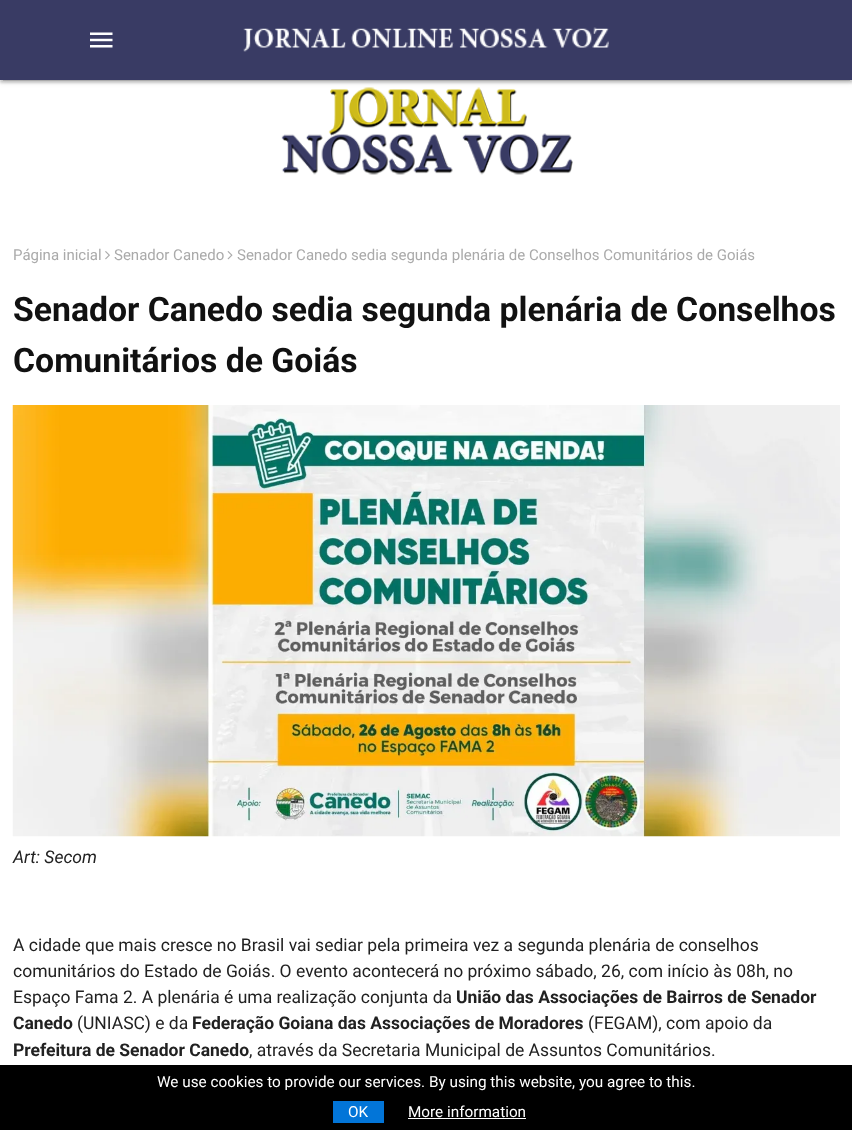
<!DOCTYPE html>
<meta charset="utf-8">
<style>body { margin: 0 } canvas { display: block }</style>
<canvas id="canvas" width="852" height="1130"></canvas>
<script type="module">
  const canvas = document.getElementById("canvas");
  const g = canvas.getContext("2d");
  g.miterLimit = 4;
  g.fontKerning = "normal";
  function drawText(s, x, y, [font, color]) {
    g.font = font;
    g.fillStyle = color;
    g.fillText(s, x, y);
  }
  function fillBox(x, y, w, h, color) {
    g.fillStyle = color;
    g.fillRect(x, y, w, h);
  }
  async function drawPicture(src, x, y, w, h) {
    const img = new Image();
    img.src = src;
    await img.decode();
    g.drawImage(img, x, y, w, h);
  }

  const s1 = ["15px Roboto", "#AAAAAA"];
  const s2 = ["bold 33.75px Roboto", "#111111"];
  const s3 = ["italic 17.5px Roboto", "#212121"];
  const s4 = ["17.5px Roboto", "#212121"];
  const s5 = ["bold 17.5px Roboto", "#212121"];
  const s6 = ["15.3px Roboto", "#FFFFFF"];

  fillBox(0, 0, 852, 1130, "#FFFFFF");
  g.fillStyle = "rgba(0, 0, 0, 0.2)";
  g.filter = "blur(3px)";
  g.beginPath();
  g.rect(0, 1, 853, 80);
  g.fill();
  g.filter = "none";
  g.fillStyle = "rgba(0, 0, 0, 0.12)";
  g.filter = "blur(0.5px)";
  g.beginPath();
  g.rect(3, 6, 847, 75);
  g.fill();
  g.filter = "none";
  g.fillStyle = "rgba(0, 0, 0, 0.14)";
  g.filter = "blur(1px)";
  g.beginPath();
  g.rect(0, 3, 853, 80);
  g.fill();
  g.filter = "none";
  fillBox(0, 0, 852, 80, "#393B64");
  await drawPicture("pic1.png", 90, 32, 23, 16);
  await drawPicture("pic2.png", 243, 27, 366, 25);
  await drawPicture("pic3.png", 281, 87, 292, 88);
  drawText("Página inicial", 13, 260, s1);
  await drawPicture("pic4.png", 105, 251, 5, 9);
  drawText("Senador Canedo", 114, 260, s1);
  await drawPicture("pic5.png", 227, 251, 6, 9);
  drawText("Senador Canedo sedia segunda plenária de Conselhos Comunitários de Goiás", 237, 260, s1);
  drawText("Senador Canedo sedia segunda plenária de Conselhos", 13, 321, s2);
  drawText("Comunitários de Goiás", 13, 372, s2);
  await drawPicture("pic6.png", 12, 405, 828, 432);
  drawText("Art: Secom", 13, 863, s3);
  drawText("A cidade que mais cresce no Brasil vai sediar pela primeira vez a segunda plenária de conselhos", 13, 951, s4);
  drawText("comunitários do Estado de Goiás. O evento acontecerá no próximo sábado, 26, com início às 08h, no", 13, 977, s4);
  drawText("Espaço Fama 2. A plenária é uma realização conjunta da", 13, 1003, s4);
  drawText("União das Associações de Bairros de Senador", 456, 1003, s5);
  drawText("Canedo", 13, 1029, s5);
  drawText("(UNIASC) e da", 77, 1029, s4);
  drawText("Federação Goiana das Associações de Moradores", 192, 1029, s5);
  drawText("(FEGAM), com apoio da", 588, 1029, s4);
  drawText("Prefeitura de Senador Canedo", 13, 1056, s5);
  drawText(", através da Secretaria Municipal de Assuntos Comunitários.", 249, 1056, s4);
  fillBox(0, 1065, 852, 65, "#000000");
  drawText("We use cookies to provide our services. By using this website, you agree to this.", 157, 1087, s6);
  fillBox(333, 1101, 51, 22, "#0275D8");
  drawText("OK", 348, 1117, s6);
  drawText("More information", 408, 1117, s6);
  fillBox(408, 1118, 118, 1, "#FFFFFF");
</script>
